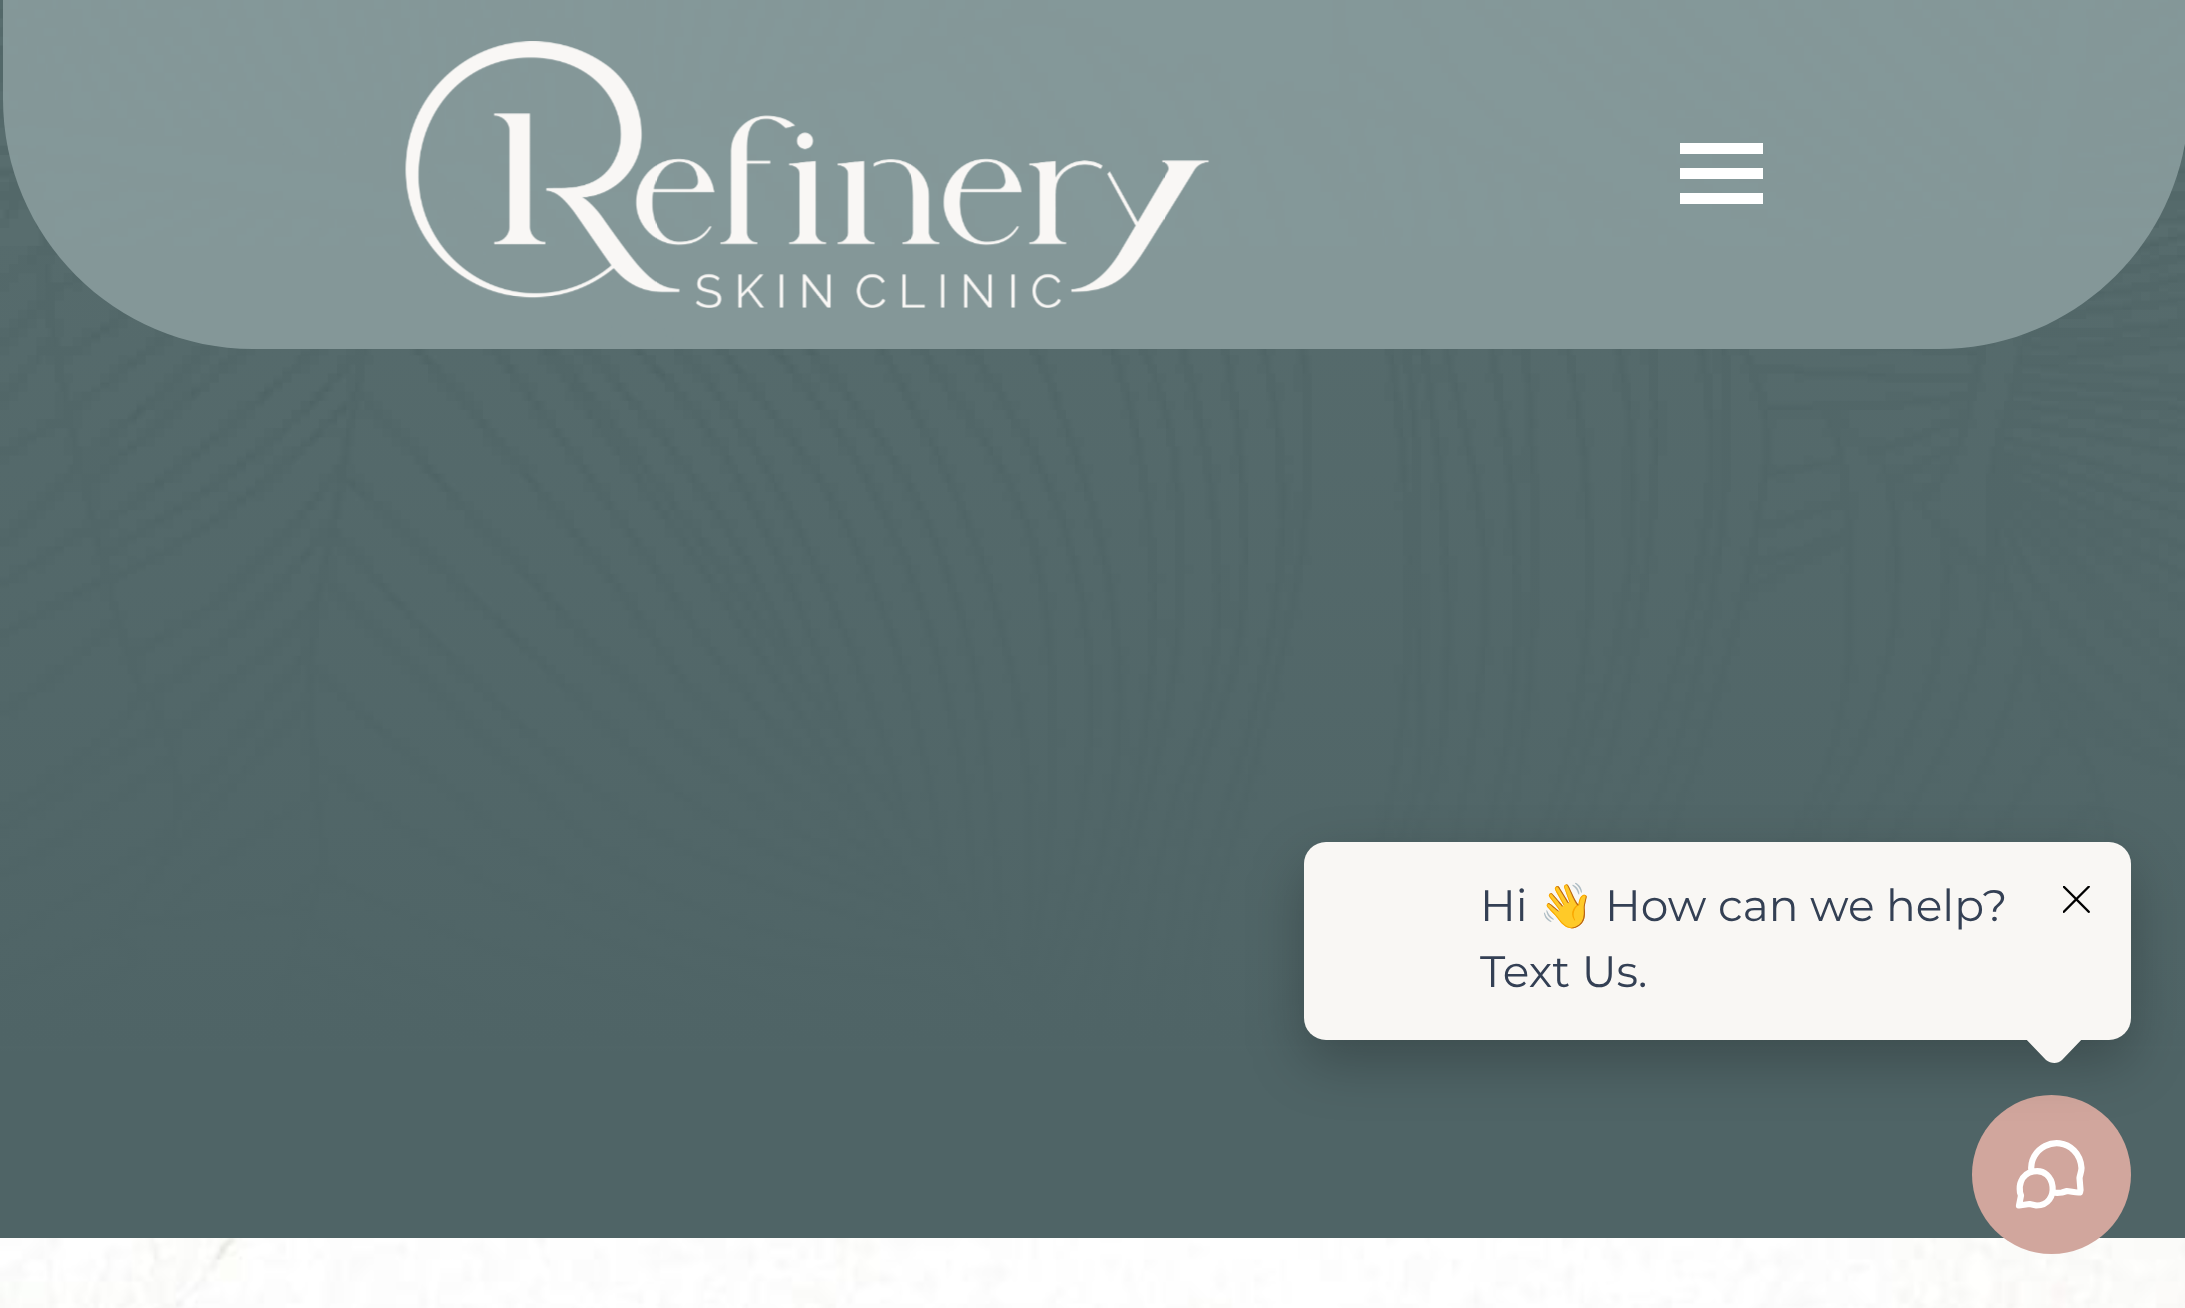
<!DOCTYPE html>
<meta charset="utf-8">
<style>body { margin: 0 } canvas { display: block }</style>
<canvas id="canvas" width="2185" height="1308"></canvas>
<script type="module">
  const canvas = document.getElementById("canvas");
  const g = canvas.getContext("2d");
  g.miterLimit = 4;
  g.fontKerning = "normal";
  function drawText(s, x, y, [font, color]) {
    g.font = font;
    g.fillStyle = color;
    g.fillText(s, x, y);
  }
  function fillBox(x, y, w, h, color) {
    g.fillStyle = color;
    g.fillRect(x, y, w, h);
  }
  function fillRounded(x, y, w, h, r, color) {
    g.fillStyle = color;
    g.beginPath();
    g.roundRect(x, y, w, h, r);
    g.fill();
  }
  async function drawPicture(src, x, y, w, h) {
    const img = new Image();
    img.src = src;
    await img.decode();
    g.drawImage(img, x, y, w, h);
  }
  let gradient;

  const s1 = ["44px Montserrat", "#344054"];
  const s2 = ["44px Noto Color Emoji", "#344054"];

  fillBox(0, 0, 2185, 1308, "#FFFFFF");
  await drawPicture("pic1.png", 0, 0, 2185, 1046);
  gradient = g.createLinearGradient(1093, 1238, 1093, 0);
  gradient.addColorStop(0.15, "#4F6466");
  gradient.addColorStop(1, "rgba(79, 100, 102, 0)");
  g.fillStyle = gradient;
  g.fillRect(0, 246, 2185, 992);
  await drawPicture("pic2.png", 0, 1238, 2185, 70);
  g.fillStyle = "rgba(137, 156, 157, 0.9)";
  g.beginPath();
  g.moveTo(3, 0);
  g.lineTo(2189, 0);
  g.lineTo(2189, 99);
  g.bezierCurveTo(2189, 237, 2077, 349, 1939, 349);
  g.lineTo(253, 349);
  g.bezierCurveTo(115, 349, 3, 237, 3, 99);
  g.closePath();
  g.fill();
  await drawPicture("pic3.png", 405, 41, 805, 267);
  fillBox(1680, 143, 83, 11, "#FFFFFF");
  fillBox(1680, 168, 83, 11, "#FFFFFF");
  fillBox(1680, 193, 83, 11, "#FFFFFF");
  g.fillStyle = "#D1A69D";
  g.beginPath();
  g.arc(2051.5, 1174.5, 79.5, 0, Math.PI * 2);
  g.fill();
  g.beginPath();
  g.moveTo(2031.5, 1172);
  g.bezierCurveTo(2028, 1148.5, 2057, 1133.5, 2074, 1150.5);
  g.bezierCurveTo(2079, 1155.5, 2081, 1161.5, 2081.5, 1168);
  g.bezierCurveTo(2081.5, 1171.5, 2080, 1174.5, 2079.5, 1178);
  g.lineTo(2080.5, 1190);
  g.lineTo(2080, 1192.5);
  g.bezierCurveTo(2079, 1193.5, 2069.5, 1191, 2067, 1191);
  g.lineTo(2062, 1192.5);
  g.bezierCurveTo(2059, 1193, 2055.5, 1193, 2052.5, 1192.5);
  g.moveTo(2036.5, 1205.5);
  g.bezierCurveTo(2060.5, 1205.5, 2056.5, 1166.5, 2033, 1171.5);
  g.bezierCurveTo(2027.5, 1172.5, 2023, 1176.5, 2021, 1181.5);
  g.bezierCurveTo(2019.5, 1185, 2019.5, 1189, 2020, 1192.5);
  g.lineTo(2021, 1195.5);
  g.lineTo(2019, 1205.5);
  g.lineTo(2029.5, 1204);
  g.closePath();
  g.strokeStyle = "#FFFFFF";
  g.lineWidth = 6.2;
  g.lineCap = "round";
  g.lineJoin = "round";
  g.stroke();
  g.fillStyle = "rgba(0, 0, 0, 0.24)";
  g.filter = "blur(27.5px)";
  g.beginPath();
  g.roundRect(1304, 864, 827, 198, 22);
  g.fill();
  g.filter = "none";
  fillRounded(1304, 842, 827, 198, 22, "#F9F7F4");
  drawText("Hi", 1480, 921, s1);
  drawText("👋", 1539, 921, s2);
  drawText("How can we help?", 1605, 921, s1);
  drawText("Text Us.", 1480, 987, s1);
  g.fillStyle = "#F9F7F4";
  g.beginPath();
  g.moveTo(2062, 997);
  g.lineTo(2085, 1021);
  g.bezierCurveTo(2090, 1025, 2090, 1032, 2085, 1036);
  g.lineTo(2062, 1060);
  g.bezierCurveTo(2058, 1064, 2051, 1064, 2046, 1060);
  g.lineTo(2023, 1036);
  g.bezierCurveTo(2019, 1032, 2019, 1025, 2023, 1021);
  g.lineTo(2046, 997);
  g.bezierCurveTo(2051, 993, 2058, 993, 2062, 997);
  g.closePath();
  g.fill();
  await drawPicture("pic4.png", 2063, 886, 27, 27);
</script>
